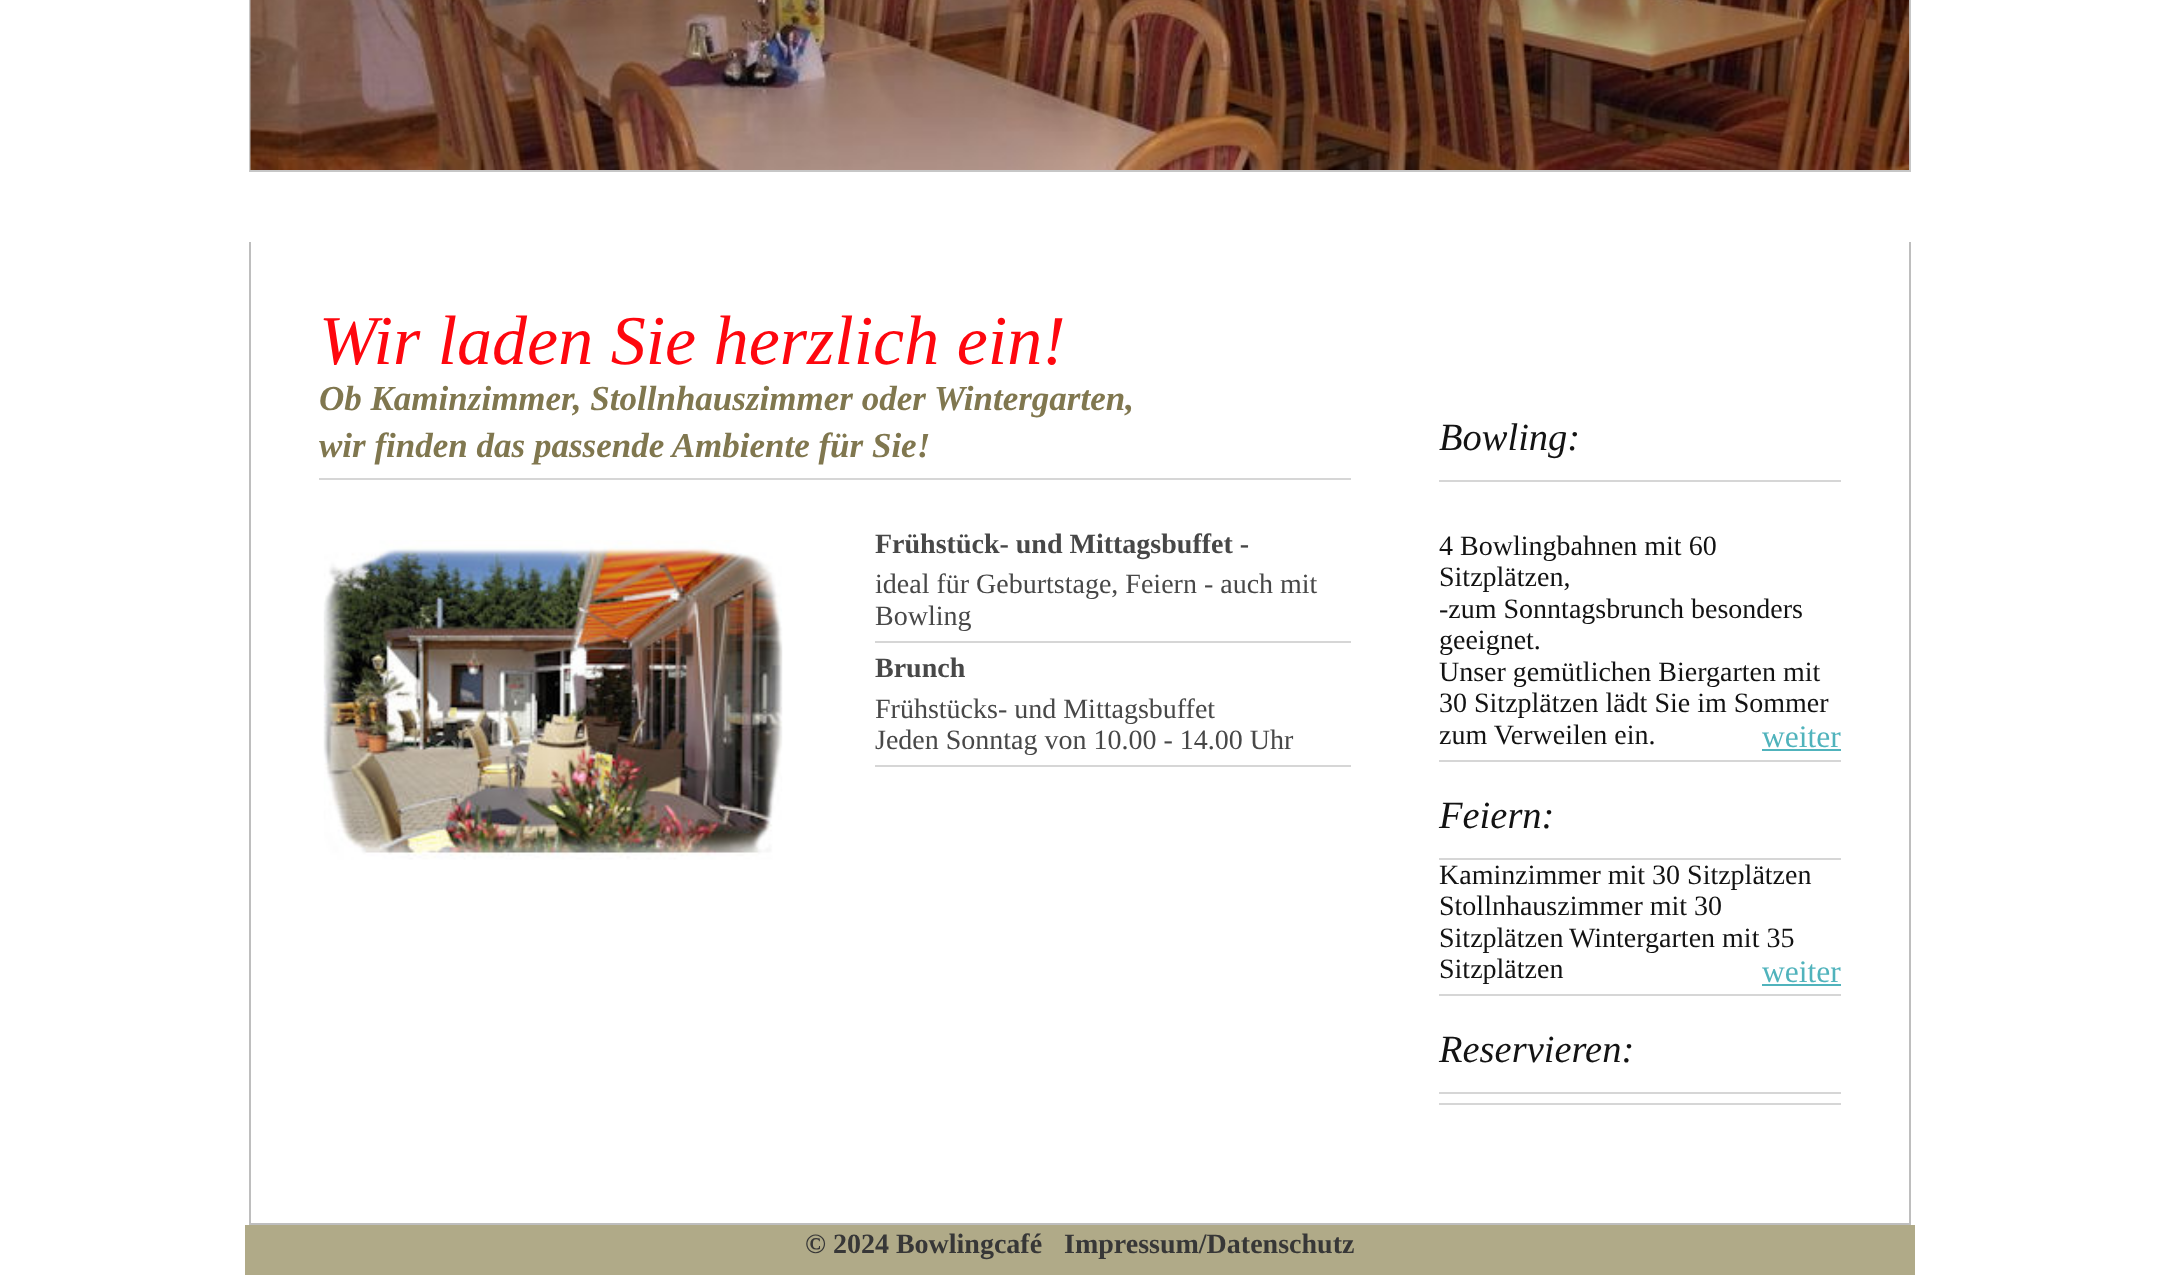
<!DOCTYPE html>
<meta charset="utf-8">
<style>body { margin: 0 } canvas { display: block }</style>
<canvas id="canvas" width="2159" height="1275"></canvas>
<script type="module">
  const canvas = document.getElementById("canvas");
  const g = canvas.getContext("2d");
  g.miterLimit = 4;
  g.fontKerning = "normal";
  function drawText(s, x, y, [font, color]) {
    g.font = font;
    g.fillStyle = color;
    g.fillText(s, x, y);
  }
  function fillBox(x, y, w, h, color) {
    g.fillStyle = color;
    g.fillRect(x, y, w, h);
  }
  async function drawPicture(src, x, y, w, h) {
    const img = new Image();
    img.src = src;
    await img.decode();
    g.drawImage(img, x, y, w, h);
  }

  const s1 = ["italic 70px Liberation Serif", "#FE070E"];
  const s2 = ["italic bold 35px Liberation Serif", "#80774F"];
  const s3 = ["bold 28px Liberation Serif", "#484848"];
  const s4 = ["28px Liberation Serif", "#484848"];
  const s5 = ["italic 38.5px Liberation Serif", "#131313"];
  const s6 = ["28px Liberation Serif", "#131313"];
  const s7 = ["31.5px Liberation Serif", "#50B3BC"];
  const s8 = ["bold 28px Liberation Serif", "#373737"];

  fillBox(0, 0, 2159, 1275, "#FFFFFF");
  fillBox(1909, 0, 2, 172, "#C7C7C7");
  fillBox(249, 170, 1662, 2, "#C7C7C7");
  fillBox(249, 0, 2, 172, "#C7C7C7");
  await drawPicture("pic1.png", 250, 0, 1660, 170);
  fillBox(1909, 242, 2, 983, "#BEBEBE");
  fillBox(249, 1223, 1662, 2, "#BEBEBE");
  fillBox(249, 242, 2, 983, "#BEBEBE");
  fillBox(319, 478, 1032, 2, "#D6D6D6");
  drawText("Wir laden Sie herzlich ein!", 319, 364, s1);
  drawText("Ob Kaminzimmer, Stollnhauszimmer oder Wintergarten,", 319, 410, s2);
  drawText("wir finden das passende Ambiente für Sie!", 319, 457, s2);
  await drawPicture("pic2.png", 323, 540, 460, 320);
  drawText("Frühstück- und Mittagsbuffet -", 875, 553, s3);
  fillBox(875, 641, 476, 2, "#D6D6D6");
  drawText("ideal für Geburtstage, Feiern - auch mit", 875, 593, s4);
  drawText("Bowling", 875, 625, s4);
  drawText("Brunch", 875, 677, s3);
  fillBox(875, 765, 476, 2, "#D6D6D6");
  drawText("Frühstücks- und Mittagsbuffet", 875, 718, s4);
  drawText("Jeden Sonntag von 10.00 - 14.00 Uhr", 875, 749, s4);
  fillBox(1439, 480, 402, 2, "#D6D6D6");
  drawText("Bowling:", 1439, 450, s5);
  fillBox(1439, 760, 402, 2, "#D6D6D6");
  drawText("4 Bowlingbahnen mit 60", 1439, 555, s6);
  drawText("Sitzplätzen,", 1439, 586, s6);
  drawText("-zum Sonntagsbrunch besonders", 1439, 618, s6);
  drawText("geeignet.", 1439, 649, s6);
  drawText("Unser gemütlichen Biergarten mit", 1439, 681, s6);
  drawText("30 Sitzplätzen lädt Sie im Sommer", 1439, 712, s6);
  drawText("zum Verweilen ein.", 1439, 744, s6);
  drawText("weiter", 1762, 747, s7);
  fillBox(1762, 749, 79, 2, "#50B3BC");
  fillBox(1439, 858, 402, 2, "#D6D6D6");
  drawText("Feiern:", 1439, 828, s5);
  fillBox(1439, 994, 402, 2, "#D6D6D6");
  drawText("Kaminzimmer mit 30 Sitzplätzen", 1439, 884, s6);
  drawText("Stollnhauszimmer mit 30", 1439, 915, s6);
  drawText("Sitzplätzen", 1439, 947, s6);
  drawText("Wintergarten mit 35", 1569, 947, s6);
  drawText("Sitzplätzen", 1439, 978, s6);
  drawText("weiter", 1762, 982, s7);
  fillBox(1762, 984, 79, 2, "#50B3BC");
  fillBox(1439, 1092, 402, 2, "#D6D6D6");
  drawText("Reservieren:", 1439, 1062, s5);
  fillBox(1439, 1103, 402, 2, "#D6D6D6");
  fillBox(245, 1225, 1670, 50, "#B0AA88");
  drawText("© 2024 Bowlingcafé", 805, 1253, s8);
  drawText("Impressum/Datenschutz", 1064, 1253, s8);
</script>
